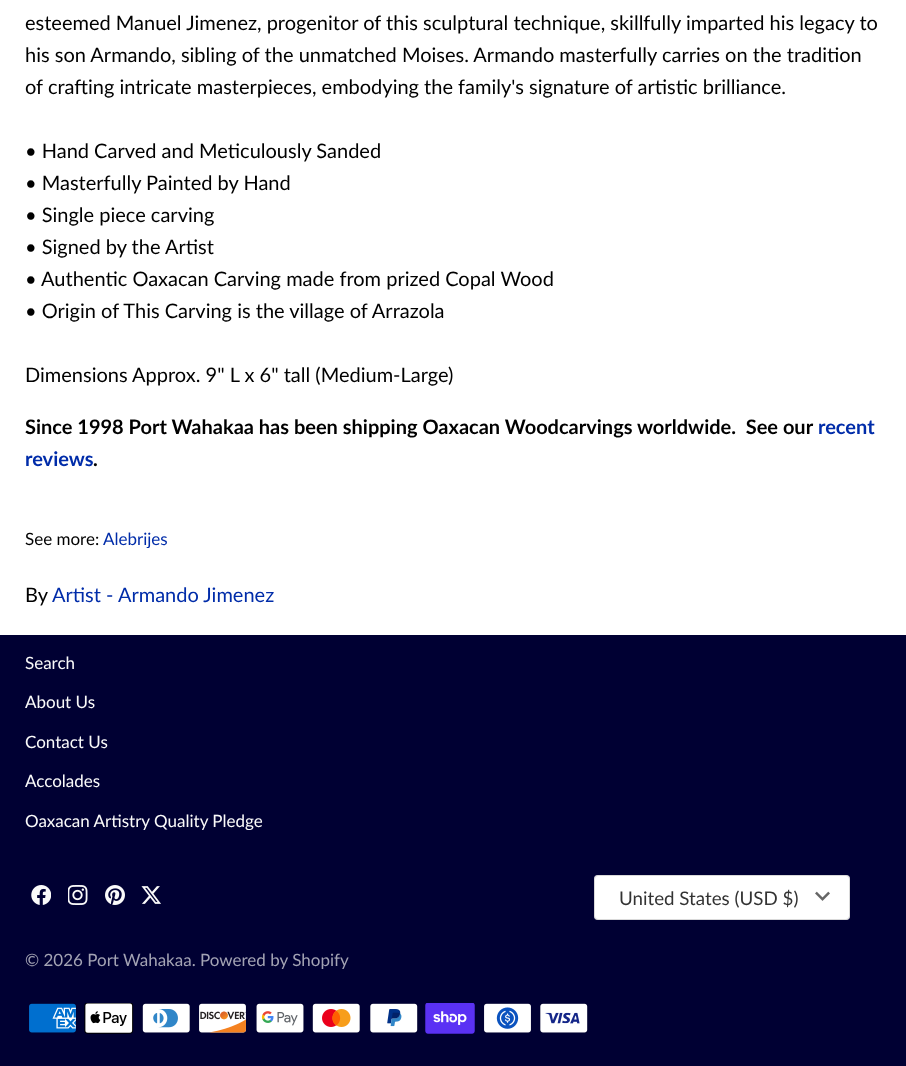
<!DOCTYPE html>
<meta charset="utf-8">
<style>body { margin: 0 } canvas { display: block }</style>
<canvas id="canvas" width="906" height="1066"></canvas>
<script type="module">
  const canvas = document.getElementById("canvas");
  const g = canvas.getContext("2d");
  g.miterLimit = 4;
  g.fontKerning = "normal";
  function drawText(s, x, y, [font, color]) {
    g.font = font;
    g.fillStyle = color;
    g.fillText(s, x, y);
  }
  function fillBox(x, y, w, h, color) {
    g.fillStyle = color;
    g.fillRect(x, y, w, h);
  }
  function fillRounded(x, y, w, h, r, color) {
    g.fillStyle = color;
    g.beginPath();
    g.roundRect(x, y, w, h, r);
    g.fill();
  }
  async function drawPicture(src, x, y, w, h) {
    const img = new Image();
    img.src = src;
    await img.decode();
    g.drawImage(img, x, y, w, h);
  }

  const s1 = ["20px Lato", "#000000"];
  const s2 = ["bold 20px Lato", "#000000"];
  const s3 = ["bold 20px Lato", "#002CA9"];
  const s4 = ["17px Lato", "#000000"];
  const s5 = ["17px Lato", "#002CA9"];
  const s6 = ["20px Lato", "#002CA9"];
  const s7 = ["17px Lato", "#FAFAFA"];
  const s8 = ["18.75px Lato", "#333333"];
  const s9 = ["17px Lato", "#A3A3B4"];

  fillBox(0, 0, 906, 1066, "#FFFFFF");
  drawText("esteemed Manuel Jimenez, progenitor of this sculptural technique, skillfully imparted his legacy to", 25, 30, s1);
  drawText("his son Armando, sibling of the unmatched Moises. Armando masterfully carries on the tradition", 25, 62, s1);
  drawText("of crafting intricate masterpieces, embodying the family's signature of artistic brilliance.", 25, 94, s1);
  drawText("• Hand Carved and Meticulously Sanded", 25, 158, s1);
  drawText("• Masterfully Painted by Hand", 25, 190, s1);
  drawText("• Single piece carving", 25, 222, s1);
  drawText("• Signed by the Artist", 25, 254, s1);
  drawText("• Authentic Oaxacan Carving made from prized Copal Wood", 25, 286, s1);
  drawText("• Origin of This Carving is the village of Arrazola", 25, 318, s1);
  drawText("Dimensions Approx. 9\" L x 6\" tall (Medium-Large)", 25, 382, s1);
  drawText("Since 1998 Port Wahakaa has been shipping Oaxacan Woodcarvings worldwide.  See our", 25, 434, s2);
  drawText("recent", 818, 434, s3);
  drawText("reviews", 25, 466, s3);
  drawText(".", 93, 466, s2);
  drawText("See more:", 25, 545, s4);
  drawText("Alebrijes", 103, 545, s5);
  drawText("By", 25, 602, s1);
  drawText("Artist - Armando Jimenez", 52, 602, s6);
  fillBox(0, 635, 906, 431, "#000033");
  drawText("Search", 25, 669, s7);
  drawText("About Us", 25, 708, s7);
  drawText("Contact Us", 25, 748, s7);
  drawText("Accolades", 25, 787, s7);
  drawText("Oaxacan Artistry Quality Pledge", 25, 827, s7);
  await drawPicture("pic1.png", 31, 885, 20, 20);
  await drawPicture("pic2.png", 68, 885, 20, 20);
  await drawPicture("pic3.png", 105, 885, 20, 20);
  await drawPicture("pic4.png", 141, 886, 20, 18);
  fillRounded(594, 875, 256, 45, 4, "#FFFFFF");
  g.beginPath();
  g.roundRect(594.5, 875.5, 255, 44, 3.5);
  g.strokeStyle = "rgba(0, 0, 0, 0.15)";
  g.stroke();
  drawText("United States (USD $)", 619, 905, s8);
  await drawPicture("pic5.png", 815, 891, 15, 10);
  drawText("© 2026 Port Wahakaa. Powered by Shopify", 25, 966, s9);
  await drawPicture("pic6.png", 29, 1003, 47, 30);
  await drawPicture("pic7.png", 84, 1003, 50, 31);
  await drawPicture("pic8.png", 142, 1003, 48, 30);
  await drawPicture("pic9.png", 199, 1003, 47, 30);
  await drawPicture("pic10.png", 256, 1003, 48, 30);
  await drawPicture("pic11.png", 312, 1003, 48, 30);
  await drawPicture("pic12.png", 370, 1003, 48, 30);
  await drawPicture("pic13.png", 425, 1003, 50, 31);
  await drawPicture("pic14.png", 484, 1003, 47, 30);
  await drawPicture("pic15.png", 540, 1003, 48, 30);
</script>
